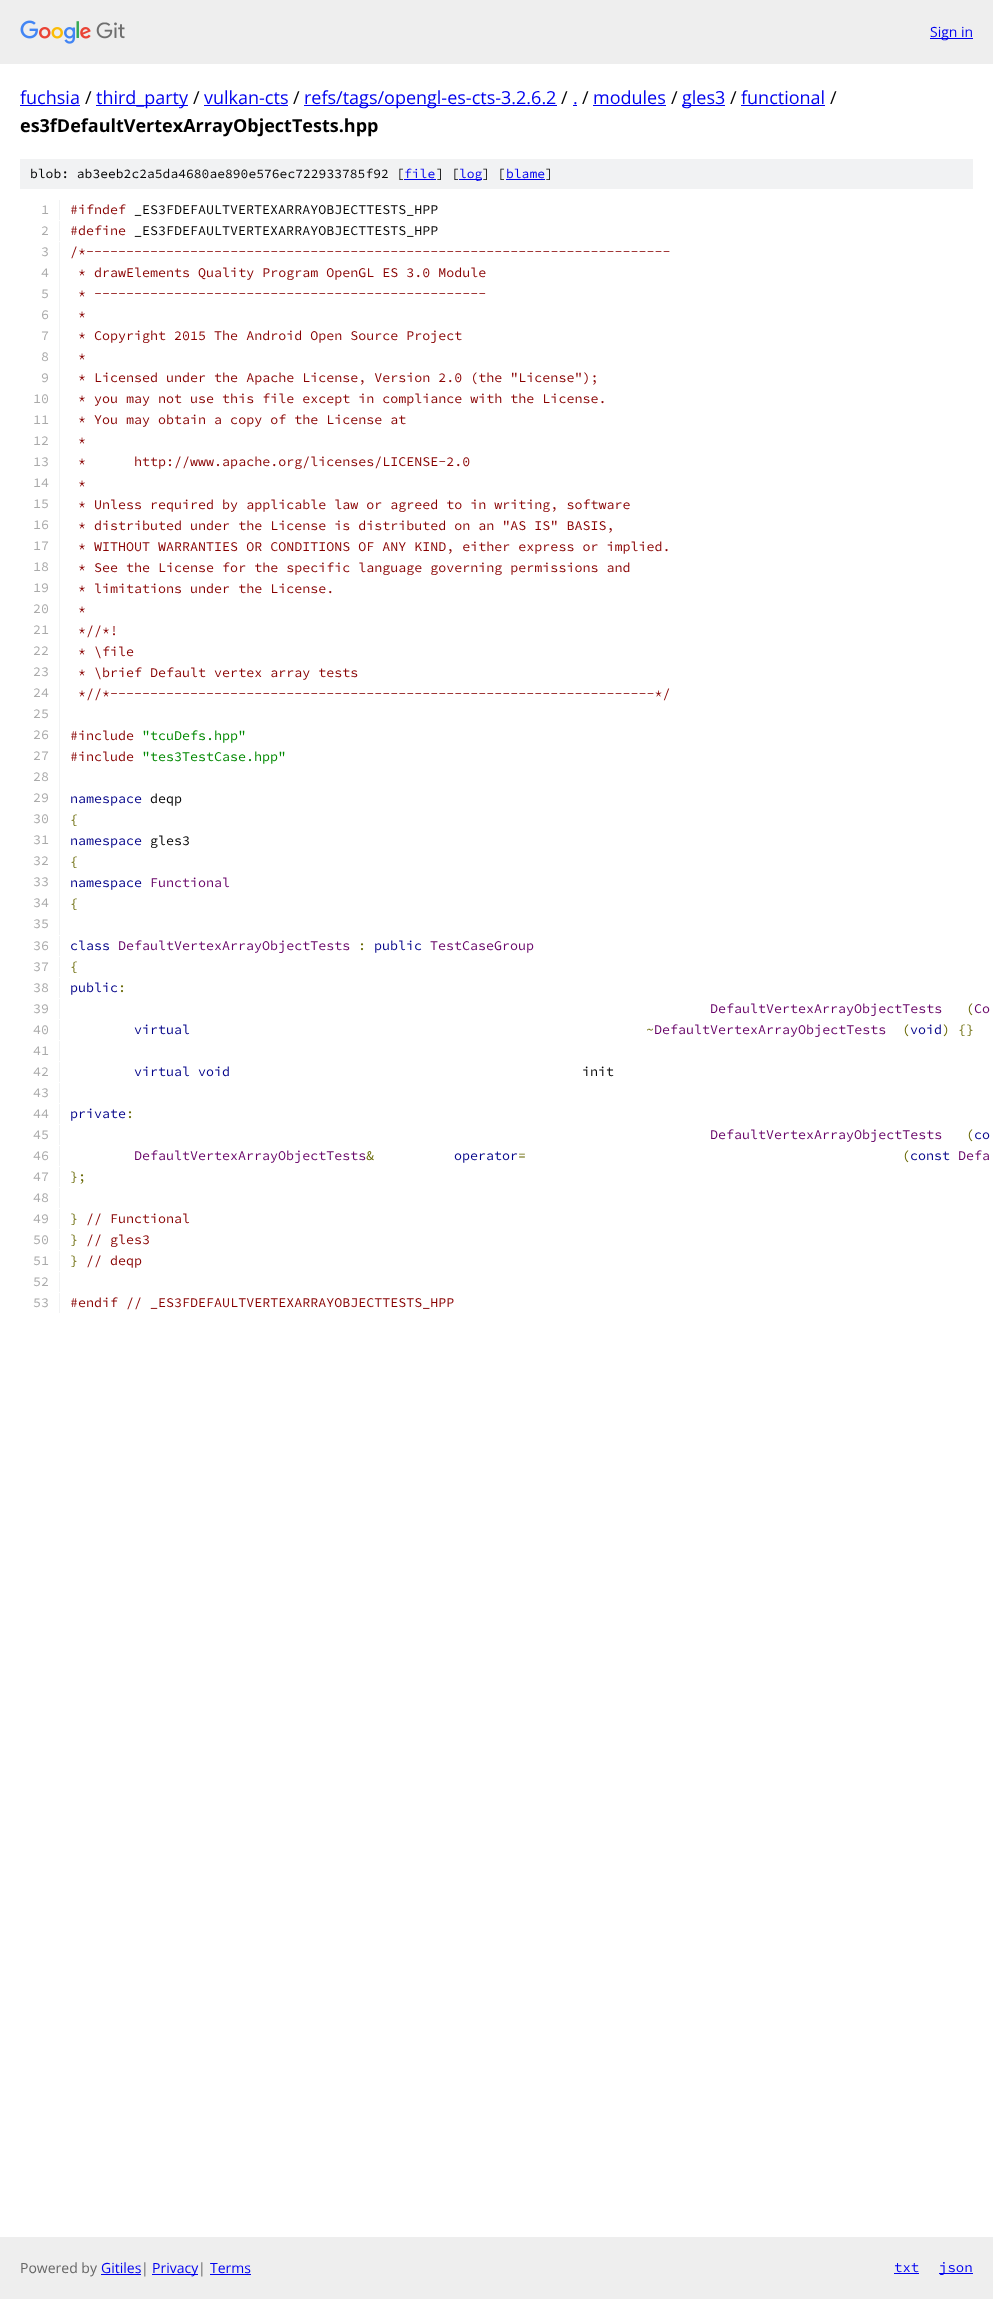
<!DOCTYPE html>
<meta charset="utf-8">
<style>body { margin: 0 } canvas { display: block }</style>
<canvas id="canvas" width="993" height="2299"></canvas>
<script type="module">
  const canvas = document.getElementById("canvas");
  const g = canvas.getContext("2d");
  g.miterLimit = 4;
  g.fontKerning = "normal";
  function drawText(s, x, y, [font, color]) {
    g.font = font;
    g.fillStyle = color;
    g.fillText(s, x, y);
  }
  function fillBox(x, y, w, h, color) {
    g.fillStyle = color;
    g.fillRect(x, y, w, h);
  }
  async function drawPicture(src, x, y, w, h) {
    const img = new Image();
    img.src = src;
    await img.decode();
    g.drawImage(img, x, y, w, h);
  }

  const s1 = ["14px Open Sans", "#0000EE"];
  const s2 = ["18px Open Sans", "#0000EE"];
  const s3 = ["18px Open Sans", "#000000"];
  const s4 = ["bold 18px Open Sans", "#000000"];
  const s5 = ["200 13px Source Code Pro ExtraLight", "#000000"];
  const s6 = ["200 13px Source Code Pro ExtraLight", "#0000EE"];
  const s7 = ["200 13.35px Source Code Pro ExtraLight", "#AAAAAA"];
  const s8 = ["200 13.35px Source Code Pro ExtraLight", "#880000"];
  const s9 = ["200 13.35px Source Code Pro ExtraLight", "#000000"];
  const s10 = ["200 13.35px Source Code Pro ExtraLight", "#008800"];
  const s11 = ["200 13.35px Source Code Pro ExtraLight", "#000088"];
  const s12 = ["200 13.35px Source Code Pro ExtraLight", "#666600"];
  const s13 = ["200 13.35px Source Code Pro ExtraLight", "#660066"];
  const s14 = ["14px Open Sans", "#666666"];
  const s15 = ["200 14px Source Code Pro ExtraLight", "#0000EE"];

  fillBox(0, 0, 993, 2299, "#FFFFFF");
  fillBox(0, 0, 993, 64, "#EEEEEE");
  await drawPicture("pic1.png", 20, 20, 105, 24);
  fillBox(930, 38, 43, 1, "#0000EE");
  drawText("Sign in", 930, 37, s1);
  drawText("fuchsia", 20, 104, s2);
  fillBox(20, 105, 60, 1, "#0000EE");
  drawText("/", 85, 104, s3);
  fillBox(96, 105, 92, 1, "#0000EE");
  drawText("third_party", 96, 104, s2);
  drawText("/", 193, 104, s3);
  drawText("vulkan-cts", 204, 104, s2);
  fillBox(204, 105, 84, 1, "#0000EE");
  drawText("/", 293, 104, s3);
  fillBox(304, 105, 253, 1, "#0000EE");
  drawText("refs/tags/opengl-es-cts-3.2.6.2", 304, 104, s2);
  drawText("/", 561, 104, s3);
  drawText(".", 573, 104, s2);
  fillBox(573, 105, 4, 1, "#0000EE");
  drawText("/", 582, 104, s3);
  drawText("modules", 593, 104, s2);
  fillBox(593, 105, 73, 1, "#0000EE");
  drawText("/", 671, 104, s3);
  fillBox(682, 105, 43, 1, "#0000EE");
  drawText("gles3", 682, 104, s2);
  drawText("/", 730, 104, s3);
  drawText("functional", 741, 104, s2);
  fillBox(741, 105, 84, 1, "#0000EE");
  drawText("/", 830, 104, s3);
  drawText("es3fDefaultVertexArrayObjectTests.hpp", 20, 132, s4);
  fillBox(20, 159, 953, 30, "#F1F2F3");
  drawText("blob: ab3eeb2c2a5da4680ae890e576ec722933785f92 [", 30, 178, s5);
  drawText("file", 404, 178, s6);
  fillBox(404, 179, 32, 1, "#0000EE");
  drawText("] [", 436, 178, s5);
  fillBox(459, 179, 23, 1, "#0000EE");
  drawText("log", 459, 178, s6);
  drawText("] [", 482, 178, s5);
  drawText("blame", 506, 178, s6);
  fillBox(506, 179, 39, 1, "#0000EE");
  drawText("]", 545, 178, s5);
  fillBox(59, 200, 1, 20, "#F1F2F3");
  drawText("1", 41, 214, s7);
  drawText("#ifndef", 70, 214, s8);
  drawText("_ES3FDEFAULTVERTEXARRAYOBJECTTESTS_HPP", 134, 214, s9);
  fillBox(59, 221, 1, 20, "#F1F2F3");
  drawText("2", 41, 235, s7);
  drawText("#define", 70, 235, s8);
  drawText("_ES3FDEFAULTVERTEXARRAYOBJECTTESTS_HPP", 134, 235, s9);
  fillBox(59, 242, 1, 693, "#F1F2F3");
  drawText("3", 41, 256, s7);
  drawText("/*-------------------------------------------------------------------------", 70, 256, s8);
  drawText("4", 41, 277, s7);
  drawText("* drawElements Quality Program OpenGL ES 3.0 Module", 78, 277, s8);
  drawText("5", 41, 298, s7);
  drawText("* -------------------------------------------------", 78, 298, s8);
  drawText("6", 41, 319, s7);
  drawText("*", 78, 319, s8);
  drawText("7", 41, 340, s7);
  drawText("* Copyright 2015 The Android Open Source Project", 78, 340, s8);
  drawText("8", 41, 361, s7);
  drawText("*", 78, 361, s8);
  drawText("9", 41, 382, s7);
  drawText("* Licensed under the Apache License, Version 2.0 (the \"License\");", 78, 382, s8);
  drawText("10", 33, 403, s7);
  drawText("* you may not use this file except in compliance with the License.", 78, 403, s8);
  drawText("11", 33, 424, s7);
  drawText("* You may obtain a copy of the License at", 78, 424, s8);
  drawText("12", 33, 445, s7);
  drawText("*", 78, 445, s8);
  drawText("13", 33, 466, s7);
  drawText("*      http://www.apache.org/licenses/LICENSE-2.0", 78, 466, s8);
  drawText("14", 33, 487, s7);
  drawText("*", 78, 488, s8);
  drawText("15", 33, 508, s7);
  drawText("* Unless required by applicable law or agreed to in writing, software", 78, 509, s8);
  drawText("16", 33, 529, s7);
  drawText("* distributed under the License is distributed on an \"AS IS\" BASIS,", 78, 530, s8);
  drawText("17", 33, 550, s7);
  drawText("* WITHOUT WARRANTIES OR CONDITIONS OF ANY KIND, either express or implied.", 78, 551, s8);
  drawText("18", 33, 571, s7);
  drawText("* See the License for the specific language governing permissions and", 78, 572, s8);
  drawText("19", 33, 592, s7);
  drawText("* limitations under the License.", 78, 593, s8);
  drawText("20", 33, 613, s7);
  drawText("*", 78, 614, s8);
  drawText("21", 33, 634, s7);
  drawText("*//*!", 78, 635, s8);
  drawText("22", 33, 655, s7);
  drawText("* \\file", 78, 656, s8);
  drawText("23", 33, 676, s7);
  drawText("* \\brief Default vertex array tests", 78, 677, s8);
  drawText("24", 33, 697, s7);
  drawText("*//*--------------------------------------------------------------------*/", 78, 698, s8);
  drawText("25", 33, 718, s7);
  drawText("26", 33, 739, s7);
  drawText("#include", 70, 740, s8);
  drawText("\"tcuDefs.hpp\"", 142, 740, s10);
  drawText("27", 33, 760, s7);
  drawText("#include", 70, 761, s8);
  drawText("\"tes3TestCase.hpp\"", 142, 761, s10);
  drawText("28", 33, 781, s7);
  drawText("29", 33, 802, s7);
  drawText("namespace", 70, 803, s11);
  drawText("deqp", 150, 803, s9);
  drawText("30", 33, 823, s7);
  drawText("{", 70, 824, s12);
  drawText("31", 33, 844, s7);
  drawText("namespace", 70, 845, s11);
  drawText("gles3", 150, 845, s9);
  drawText("32", 33, 865, s7);
  drawText("{", 70, 866, s12);
  drawText("33", 33, 886, s7);
  drawText("namespace", 70, 887, s11);
  drawText("Functional", 150, 887, s13);
  drawText("34", 33, 907, s7);
  drawText("{", 70, 908, s12);
  drawText("35", 33, 928, s7);
  fillBox(59, 936, 1, 20, "#F1F2F3");
  drawText("36", 33, 950, s7);
  drawText("class", 70, 950, s11);
  drawText("DefaultVertexArrayObjectTests", 118, 950, s13);
  drawText(":", 358, 950, s12);
  drawText("public", 374, 950, s11);
  drawText("TestCaseGroup", 430, 950, s13);
  fillBox(59, 957, 1, 20, "#F1F2F3");
  drawText("37", 33, 971, s7);
  drawText("{", 70, 971, s12);
  fillBox(59, 978, 1, 20, "#F1F2F3");
  drawText("38", 33, 992, s7);
  drawText("public", 70, 992, s11);
  drawText(":", 118, 992, s12);
  fillBox(59, 999, 1, 20, "#F1F2F3");
  drawText("39", 33, 1013, s7);
  drawText("DefaultVertexArrayObjectTests", 710, 1013, s13);
  drawText("(", 966, 1013, s12);
  drawText("Co", 974, 1013, s13);
  fillBox(59, 1020, 1, 20, "#F1F2F3");
  drawText("40", 33, 1034, s7);
  drawText("virtual", 134, 1034, s11);
  drawText("~", 646, 1034, s12);
  drawText("DefaultVertexArrayObjectTests", 654, 1034, s13);
  drawText("(", 902, 1034, s12);
  drawText("void", 910, 1034, s11);
  drawText(") {}", 942, 1034, s12);
  fillBox(59, 1041, 1, 20, "#F1F2F3");
  drawText("41", 33, 1055, s7);
  fillBox(59, 1062, 1, 20, "#F1F2F3");
  drawText("42", 33, 1076, s7);
  drawText("virtual void", 134, 1076, s11);
  drawText("init", 582, 1076, s9);
  fillBox(59, 1083, 1, 20, "#F1F2F3");
  drawText("43", 33, 1097, s7);
  fillBox(59, 1104, 1, 20, "#F1F2F3");
  drawText("44", 33, 1118, s7);
  drawText("private", 70, 1118, s11);
  drawText(":", 126, 1118, s12);
  fillBox(59, 1125, 1, 20, "#F1F2F3");
  drawText("45", 33, 1139, s7);
  drawText("DefaultVertexArrayObjectTests", 710, 1139, s13);
  drawText("(", 966, 1139, s12);
  drawText("co", 974, 1139, s11);
  fillBox(59, 1146, 1, 20, "#F1F2F3");
  drawText("46", 33, 1160, s7);
  drawText("DefaultVertexArrayObjectTests", 134, 1160, s13);
  drawText("&", 366, 1160, s12);
  drawText("operator", 454, 1160, s11);
  drawText("=", 518, 1160, s12);
  drawText("(", 902, 1160, s12);
  drawText("const", 910, 1160, s11);
  drawText("Defa", 958, 1160, s13);
  fillBox(59, 1167, 1, 20, "#F1F2F3");
  drawText("47", 33, 1181, s7);
  drawText("};", 70, 1181, s12);
  fillBox(59, 1188, 1, 20, "#F1F2F3");
  drawText("48", 33, 1202, s7);
  fillBox(59, 1209, 1, 20, "#F1F2F3");
  drawText("49", 33, 1223, s7);
  drawText("}", 70, 1223, s12);
  drawText("// Functional", 86, 1223, s8);
  fillBox(59, 1230, 1, 20, "#F1F2F3");
  drawText("50", 33, 1244, s7);
  drawText("}", 70, 1244, s12);
  drawText("// gles3", 86, 1244, s8);
  fillBox(59, 1251, 1, 20, "#F1F2F3");
  drawText("51", 33, 1265, s7);
  drawText("}", 70, 1265, s12);
  drawText("// deqp", 86, 1265, s8);
  fillBox(59, 1272, 1, 20, "#F1F2F3");
  drawText("52", 33, 1286, s7);
  fillBox(59, 1293, 1, 20, "#F1F2F3");
  drawText("53", 33, 1307, s7);
  drawText("#endif // _ES3FDEFAULTVERTEXARRAYOBJECTTESTS_HPP", 70, 1307, s8);
  fillBox(0, 2237, 993, 62, "#EEEEEE");
  drawText("Powered by", 20, 2273, s14);
  drawText("Gitiles", 101, 2273, s1);
  fillBox(101, 2274, 40, 1, "#0000EE");
  drawText("|", 141, 2273, s14);
  fillBox(152, 2274, 46, 1, "#0000EE");
  drawText("Privacy", 152, 2273, s1);
  drawText("|", 198, 2273, s14);
  drawText("Terms", 210, 2273, s1);
  fillBox(210, 2274, 41, 1, "#0000EE");
  drawText("txt", 894, 2272, s15);
  fillBox(894, 2273, 25, 1, "#0000EE");
  fillBox(939, 2273, 34, 1, "#0000EE");
  drawText("json", 939, 2272, s15);
</script>
